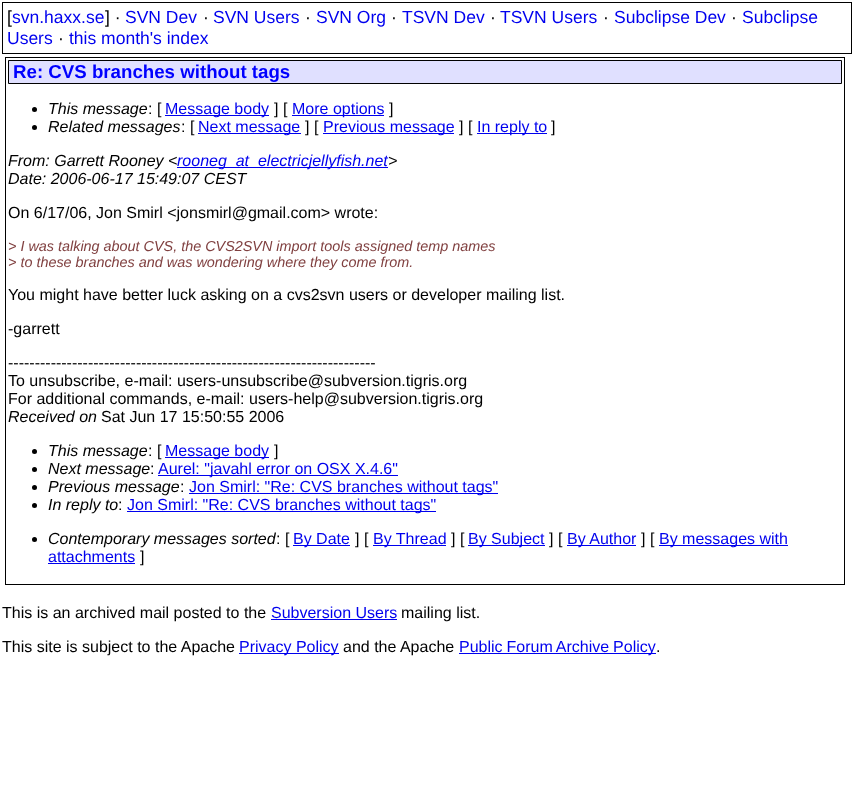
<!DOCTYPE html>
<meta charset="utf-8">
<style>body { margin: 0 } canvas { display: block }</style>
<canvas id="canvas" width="854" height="802"></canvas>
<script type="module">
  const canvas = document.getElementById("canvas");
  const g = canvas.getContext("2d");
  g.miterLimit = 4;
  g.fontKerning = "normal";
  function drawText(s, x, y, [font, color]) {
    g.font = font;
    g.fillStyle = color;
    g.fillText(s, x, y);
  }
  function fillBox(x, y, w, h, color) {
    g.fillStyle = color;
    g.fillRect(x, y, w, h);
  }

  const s1 = ["17.5px Liberation Sans", "#000000"];
  const s2 = ["17.5px Liberation Sans", "#0000EE"];
  const s3 = ["bold 18.7px Liberation Sans", "#0000FF"];
  const s4 = ["italic 16px Liberation Sans", "#000000"];
  const s5 = ["16px Liberation Sans", "#000000"];
  const s6 = ["16px Liberation Sans", "#0000EE"];
  const s7 = ["italic 16px Liberation Sans", "#0000EE"];
  const s8 = ["italic 14.4px Liberation Sans", "#804040"];

  fillBox(0, 0, 854, 802, "#FFFFFF");
  g.strokeStyle = "#000000";
  g.strokeRect(2.5, 2.5, 849, 51);
  drawText("[", 7, 23, s1);
  drawText("svn.haxx.se", 12, 23, s2);
  drawText("] ·", 105, 23, s1);
  drawText("SVN Dev", 125, 23, s2);
  drawText("·", 203, 23, s1);
  drawText("SVN Users", 213, 23, s2);
  drawText("·", 305, 23, s1);
  drawText("SVN Org", 316, 23, s2);
  drawText("·", 391, 23, s1);
  drawText("TSVN Dev", 402, 23, s2);
  drawText("·", 490, 23, s1);
  drawText("TSVN Users", 500, 23, s2);
  drawText("·", 603, 23, s1);
  drawText("Subclipse Dev", 614, 23, s2);
  drawText("·", 731, 23, s1);
  drawText("Subclipse", 742, 23, s2);
  drawText("Users", 7, 44, s2);
  drawText("·", 58, 44, s1);
  drawText("this month's index", 69, 44, s2);
  g.strokeRect(5.5, 57.5, 839, 527);
  g.fillStyle = "#E0E0FF";
  g.beginPath();
  g.rect(8.5, 60.5, 833, 23);
  g.fill();
  g.stroke();
  drawText("Re: CVS branches without tags", 13, 78, s3);
  g.fillStyle = "#000000";
  g.beginPath();
  g.arc(34.5, 109.5, 2.5, 0, Math.PI * 2);
  g.fill();
  drawText("This message", 48, 114, s4);
  drawText(": [", 148, 114, s5);
  fillBox(165, 115, 104, 1, "#0000EE");
  drawText("Message body", 165, 114, s6);
  drawText("] [", 274, 114, s5);
  fillBox(292, 115, 92, 1, "#0000EE");
  drawText("More options", 292, 114, s6);
  drawText("]", 389, 114, s5);
  g.beginPath();
  g.arc(34.5, 127.5, 2.5, 0, Math.PI * 2);
  g.fill();
  drawText("Related messages", 48, 132, s4);
  drawText(": [", 181, 132, s5);
  fillBox(198, 133, 103, 1, "#0000EE");
  drawText("Next message", 198, 132, s6);
  drawText("] [", 305, 132, s5);
  fillBox(323, 133, 131, 1, "#0000EE");
  drawText("Previous message", 323, 132, s6);
  drawText("] [", 459, 132, s5);
  fillBox(477, 133, 70, 1, "#0000EE");
  drawText("In reply to", 477, 132, s6);
  drawText("]", 551, 132, s5);
  drawText("From: Garrett Rooney <", 8, 166, s4);
  fillBox(177, 167, 211, 1, "#0000EE");
  drawText("rooneg_at_electricjellyfish.net", 177, 166, s7);
  drawText(">", 388, 166, s4);
  drawText("Date: 2006-06-17 15:49:07 CEST", 8, 184, s4);
  drawText("On 6/17/06, Jon Smirl <jonsmirl@gmail.com> wrote:", 8, 218, s5);
  drawText("> I was talking about CVS, the CVS2SVN import tools assigned temp names", 8, 251, s8);
  drawText("> to these branches and was wondering where they come from.", 8, 267, s8);
  drawText("You might have better luck asking on a cvs2svn users or developer mailing list.", 8, 300, s5);
  drawText("-garrett", 8, 334, s5);
  drawText("---------------------------------------------------------------------", 8, 368, s5);
  drawText("To unsubscribe, e-mail: users-unsubscribe@subversion.tigris.org", 8, 386, s5);
  drawText("For additional commands, e-mail: users-help@subversion.tigris.org", 8, 404, s5);
  drawText("Received on", 8, 422, s4);
  drawText("Sat Jun 17 15:50:55 2006", 101, 422, s5);
  g.beginPath();
  g.arc(34.5, 451.5, 2.5, 0, Math.PI * 2);
  g.fill();
  drawText("This message", 48, 456, s4);
  drawText(": [", 148, 456, s5);
  fillBox(165, 457, 104, 1, "#0000EE");
  drawText("Message body", 165, 456, s6);
  drawText("]", 274, 456, s5);
  g.beginPath();
  g.arc(34.5, 469.5, 2.5, 0, Math.PI * 2);
  g.fill();
  drawText("Next message", 48, 474, s4);
  drawText(":", 150, 474, s5);
  fillBox(158, 475, 240, 1, "#0000EE");
  drawText("Aurel: \"javahl error on OSX X.4.6\"", 158, 474, s6);
  g.fillStyle = "#000000";
  g.beginPath();
  g.arc(34.5, 487.5, 2.5, 0, Math.PI * 2);
  g.fill();
  drawText("Previous message", 48, 492, s4);
  drawText(":", 180, 492, s5);
  fillBox(189, 493, 309, 1, "#0000EE");
  drawText("Jon Smirl: \"Re: CVS branches without tags\"", 189, 492, s6);
  g.fillStyle = "#000000";
  g.beginPath();
  g.arc(34.5, 505.5, 2.5, 0, Math.PI * 2);
  g.fill();
  drawText("In reply to", 48, 510, s4);
  drawText(":", 118, 510, s5);
  fillBox(127, 511, 309, 1, "#0000EE");
  drawText("Jon Smirl: \"Re: CVS branches without tags\"", 127, 510, s6);
  g.fillStyle = "#000000";
  g.beginPath();
  g.arc(34.5, 539.5, 2.5, 0, Math.PI * 2);
  g.fill();
  drawText("Contemporary messages sorted", 48, 544, s4);
  drawText(": [", 276, 544, s5);
  fillBox(293, 545, 57, 1, "#0000EE");
  drawText("By Date", 293, 544, s6);
  drawText("] [", 355, 544, s5);
  fillBox(373, 545, 73, 1, "#0000EE");
  drawText("By Thread", 373, 544, s6);
  drawText("] [", 451, 544, s5);
  fillBox(468, 545, 77, 1, "#0000EE");
  drawText("By Subject", 468, 544, s6);
  drawText("] [", 549, 544, s5);
  fillBox(567, 545, 69, 1, "#0000EE");
  drawText("By Author", 567, 544, s6);
  drawText("] [", 641, 544, s5);
  fillBox(659, 545, 129, 1, "#0000EE");
  drawText("By messages with", 659, 544, s6);
  drawText("attachments", 48, 562, s6);
  fillBox(48, 563, 87, 1, "#0000EE");
  drawText("]", 140, 562, s5);
  drawText("This is an archived mail posted to the", 2, 618, s5);
  drawText("Subversion Users", 271, 618, s6);
  fillBox(271, 619, 126, 1, "#0000EE");
  drawText("mailing list.", 401, 618, s5);
  drawText("This site is subject to the Apache", 2, 652, s5);
  fillBox(239, 653, 100, 1, "#0000EE");
  drawText("Privacy Policy", 239, 652, s6);
  drawText("and the Apache", 343, 652, s5);
  fillBox(459, 653, 197, 1, "#0000EE");
  g.wordSpacing = "-0.5px";
  drawText("Public Forum Archive Policy", 459, 652, s6);
  g.wordSpacing = "0px";
  drawText(".", 656, 652, s5);
</script>
